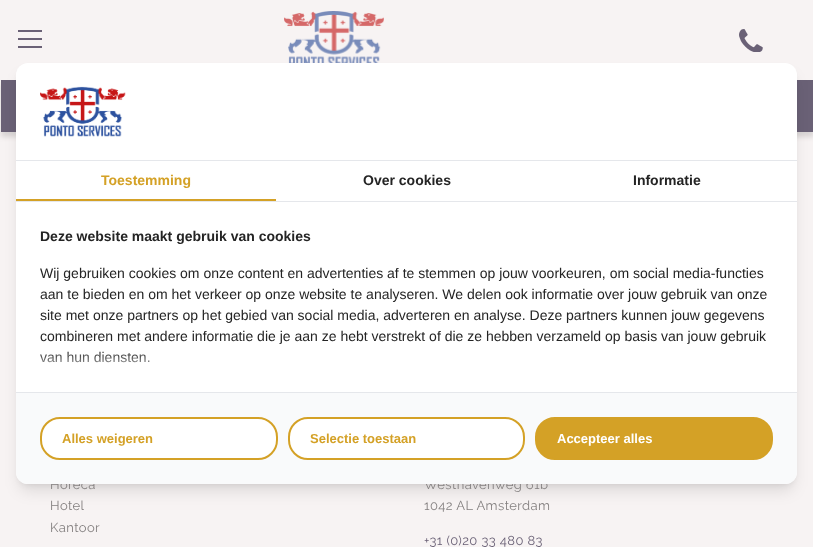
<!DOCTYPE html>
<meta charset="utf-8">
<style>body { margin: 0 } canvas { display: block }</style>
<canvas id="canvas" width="813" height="547"></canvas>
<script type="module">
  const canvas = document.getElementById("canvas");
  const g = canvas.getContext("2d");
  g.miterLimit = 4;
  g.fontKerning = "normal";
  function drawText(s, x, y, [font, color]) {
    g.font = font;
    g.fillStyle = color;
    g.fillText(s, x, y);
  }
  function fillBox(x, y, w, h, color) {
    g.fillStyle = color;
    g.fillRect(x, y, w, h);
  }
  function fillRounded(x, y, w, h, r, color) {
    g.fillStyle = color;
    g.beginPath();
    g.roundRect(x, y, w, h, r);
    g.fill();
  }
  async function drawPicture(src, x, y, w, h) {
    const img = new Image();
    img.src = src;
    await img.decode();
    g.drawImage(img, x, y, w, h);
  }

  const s1 = ["13px Raleway", "#848080"];
  const s2 = ["bold 14px Liberation Sans", "#D4A126"];
  const s3 = ["bold 14px Liberation Sans", "#242424"];
  const s4 = ["14px Liberation Sans", "#242424"];
  const s5 = ["bold 13px Liberation Sans", "#D4A126"];
  const s6 = ["bold 13px Liberation Sans", "#FFFFFF"];
  const s7 = ["13px Raleway", "#6A6176"];

  fillBox(0, 0, 813, 547, "#F7F3F3");
  await drawPicture("pic2.png", 284, 11, 100, 52);
  g.fillStyle = "rgba(94, 90, 90, 0.2)";
  g.filter = "blur(2.5px)";
  g.beginPath();
  g.rect(1, 85, 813, 52);
  g.fill();
  g.filter = "none";
  fillBox(1, 80, 812, 52, "#6A6176");
  g.fillStyle = "rgba(0, 0, 0, 0.1)";
  g.filter = "blur(3px)";
  g.beginPath();
  g.roundRect(20, 71, 773, 413, 8);
  g.fill();
  g.filter = "none";
  g.filter = "blur(7.5px)";
  g.beginPath();
  g.roundRect(19, 76, 775, 415, 9);
  g.fill();
  g.filter = "none";
  g.letterSpacing = "0.4px";
  drawText("Horeca", 50, 489, s1);
  drawText("Westhavenweg 61b", 424, 489, s1);
  fillRounded(16, 63, 781, 421, 12, "#FFFFFF");
  fillBox(16, 160, 781, 1, "#E5E7EB");
  await drawPicture("pic1.png", 40, 86, 86, 51);
  fillBox(16, 201, 781, 1, "#E5E7EB");
  fillBox(16, 199, 260, 2, "#D4A126");
  g.letterSpacing = "0px";
  drawText("Toestemming", 101, 185, s2);
  drawText("Over cookies", 363, 185, s3);
  drawText("Informatie", 633, 185, s3);
  drawText("Deze website maakt gebruik van cookies", 40, 241, s3);
  drawText("Wij gebruiken cookies om onze content en advertenties af te stemmen op jouw voorkeuren, om social media-functies", 40, 278, s4);
  drawText("aan te bieden en om het verkeer op onze website te analyseren. We delen ook informatie over jouw gebruik van onze", 40, 299, s4);
  drawText("site met onze partners op het gebied van social media, adverteren en analyse. Deze partners kunnen jouw gegevens", 40, 320, s4);
  drawText("combineren met andere informatie die je aan ze hebt verstrekt of die ze hebben verzameld op basis van jouw gebruik", 40, 341, s4);
  drawText("van hun diensten.", 40, 362, s4);
  g.save();
  g.beginPath();
  g.roundRect(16, 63, 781, 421, 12);
  g.clip();
  g.fillStyle = "#FFFFFF";
  g.filter = "blur(10px)";
  g.beginPath();
  g.rect(8, 364, 797, 108);
  g.fill();
  g.filter = "none";
  g.restore();
  g.fillStyle = "#F9FAFB";
  g.beginPath();
  g.roundRect(16, 392, 781, 92, [0, 0, 12, 12]);
  g.fill();
  fillBox(16, 392, 781, 1, "#E5E7EB");
  g.fillStyle = "#FFFFFF";
  g.beginPath();
  g.roundRect(41, 418, 236, 41, 19);
  g.fill();
  g.strokeStyle = "#D4A126";
  g.lineWidth = 2;
  g.stroke();
  drawText("Alles weigeren", 62, 443, s5);
  g.fillStyle = "#FFFFFF";
  g.beginPath();
  g.roundRect(289, 418, 235, 41, 19);
  g.fill();
  g.stroke();
  drawText("Selectie toestaan", 310, 443, s5);
  g.beginPath();
  g.roundRect(536, 418, 236, 41, 19);
  g.fill();
  g.stroke();
  drawText("Accepteer alles", 557, 443, s6);
  fillBox(18, 30, 24, 2, "#6A6176");
  fillBox(18, 38, 24, 2, "#6A6176");
  fillBox(18, 46, 24, 2, "#6A6176");
  await drawPicture("pic3.png", 739, 29, 24, 23);
  g.letterSpacing = "0.4px";
  drawText("Hotel", 50, 510, s1);
  drawText("Kantoor", 50, 532, s1);
  drawText("1042 AL Amsterdam", 424, 510, s1);
  drawText("+31 (0)20 33 480 83", 424, 545, s7);
</script>
